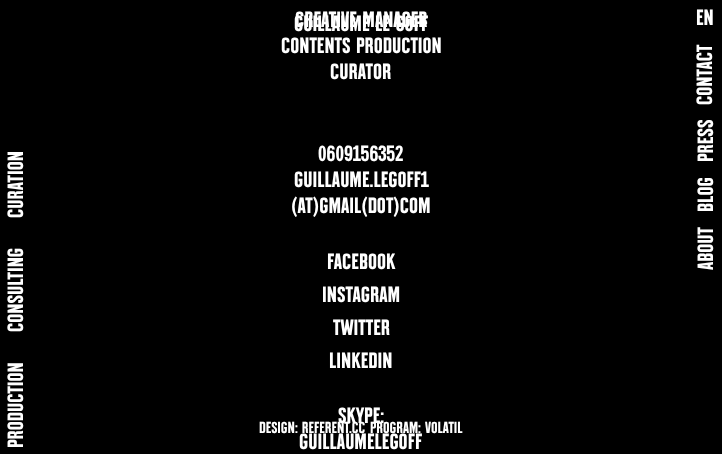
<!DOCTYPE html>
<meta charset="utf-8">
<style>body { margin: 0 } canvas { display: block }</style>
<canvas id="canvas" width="722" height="454"></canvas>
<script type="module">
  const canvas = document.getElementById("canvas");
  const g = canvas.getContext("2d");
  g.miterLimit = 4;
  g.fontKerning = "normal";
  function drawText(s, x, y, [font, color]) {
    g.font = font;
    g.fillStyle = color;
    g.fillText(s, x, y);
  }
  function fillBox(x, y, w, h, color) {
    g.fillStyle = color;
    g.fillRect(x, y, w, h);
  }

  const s1 = ["bold 22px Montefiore", "#FFFFFF"];
  const s2 = ["bold 16px Montefiore", "#FFFFFF"];

  fillBox(0, 0, 722, 454, "#000000");
  drawText("GUILLAUME LE GOFF", 294, 31, s1);
  drawText("CREATIVE MANAGER", 295, 27, s1);
  drawText("CONTENTS PRODUCTION", 281, 53, s1);
  drawText("CURATOR", 330, 79, s1);
  drawText("0609156352", 318, 161, s1);
  drawText("GUILLAUME.LEGOFF1", 294, 187, s1);
  drawText("(AT)GMAIL(DOT)COM", 291, 213, s1);
  drawText("FACEBOOK", 327, 269, s1);
  drawText("INSTAGRAM", 322, 302, s1);
  drawText("TWITTER", 333, 335, s1);
  drawText("LINKEDIN", 329, 368, s1);
  drawText("SKYPE:", 338, 423, s1);
  drawText("GUILLAUMELEGOFF", 299, 449, s1);
  drawText("DESIGN: REFERENT.CC", 259, 433, s2);
  drawText("PROGRAM: VOLATIL", 370, 433, s2);
  drawText("EN", 696, 25, s1);
  g.save();
  g.translate(712, 105);
  g.rotate(-90 * Math.PI / 180);
  g.fillText("CONTACT", 0, 0);
  g.restore();
  g.save();
  g.translate(713, 162);
  g.rotate(-90 * Math.PI / 180);
  g.fillText("PRESS", 0, 0);
  g.restore();
  g.save();
  g.translate(713, 212);
  g.rotate(-90 * Math.PI / 180);
  g.fillText("BLOG", 0, 0);
  g.restore();
  g.save();
  g.translate(713, 270);
  g.rotate(-90 * Math.PI / 180);
  g.fillText("ABOUT", 0, 0);
  g.restore();
  g.save();
  g.translate(23, 218);
  g.rotate(-90 * Math.PI / 180);
  g.fillText("CURATION", 0, 0);
  g.restore();
  g.save();
  g.translate(23, 332);
  g.rotate(-90 * Math.PI / 180);
  g.fillText("CONSULTING", 0, 0);
  g.restore();
  g.save();
  g.translate(23, 448);
  g.rotate(-90 * Math.PI / 180);
  g.fillText("PRODUCTION", 0, 0);
  g.restore();
</script>
